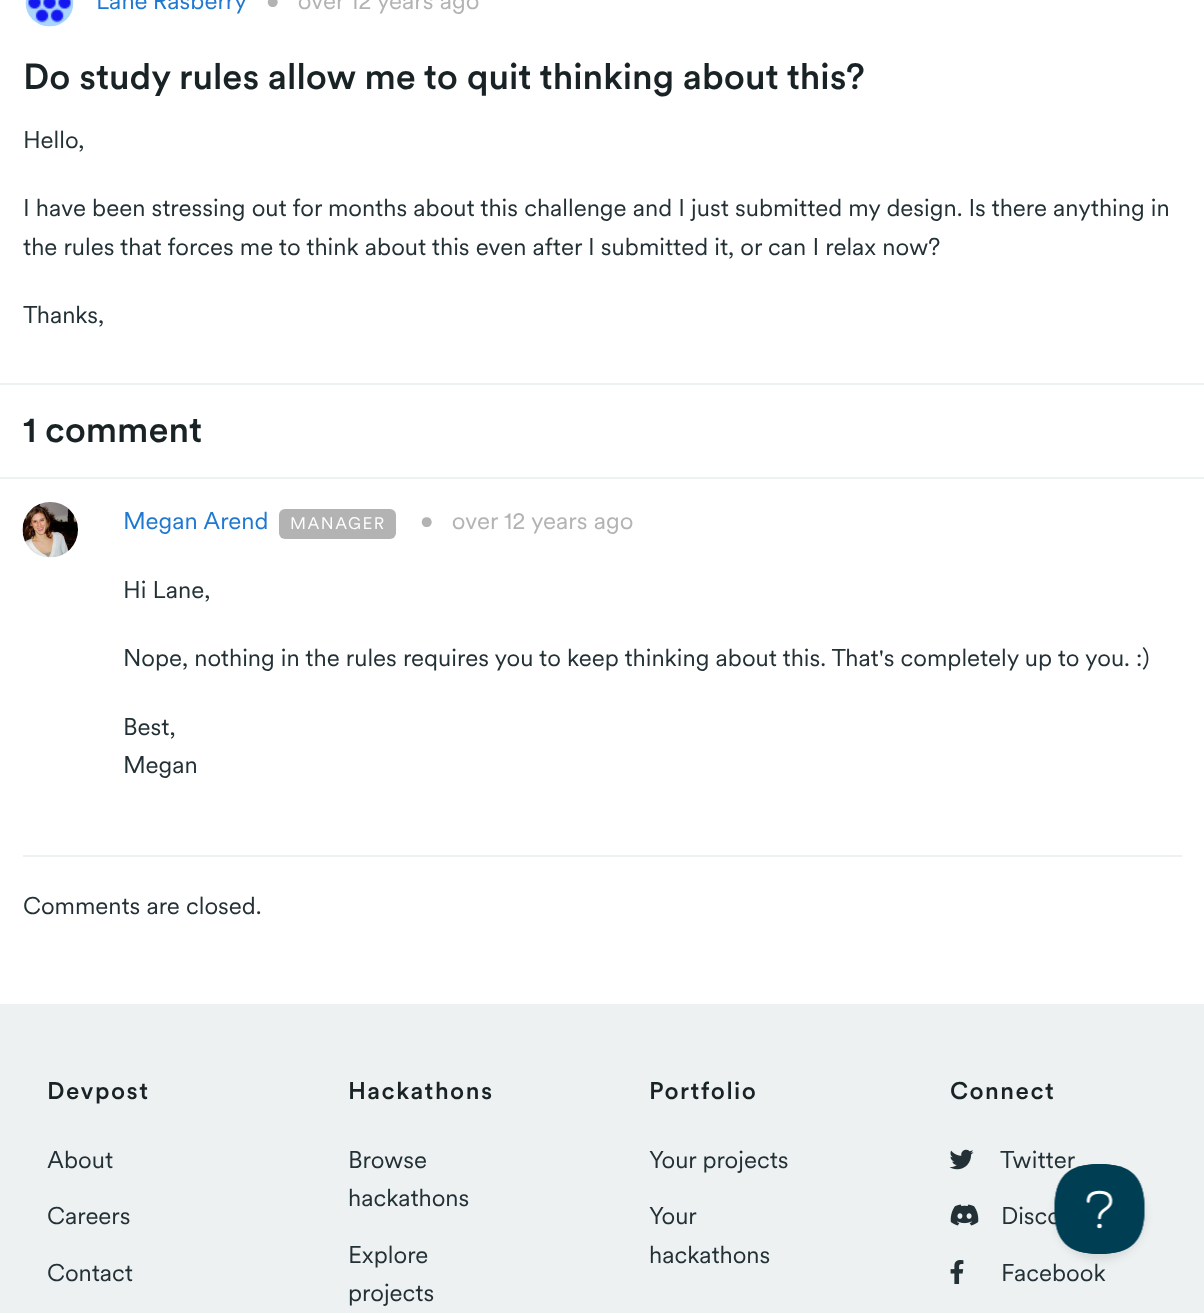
<!DOCTYPE html>
<meta charset="utf-8">
<style>body { margin: 0 } canvas { display: block }</style>
<canvas id="canvas" width="1204" height="1313"></canvas>
<script type="module">
  const canvas = document.getElementById("canvas");
  const g = canvas.getContext("2d");
  g.miterLimit = 4;
  g.fontKerning = "normal";
  function drawText(s, x, y, [font, color]) {
    g.font = font;
    g.fillStyle = color;
    g.fillText(s, x, y);
  }
  function fillBox(x, y, w, h, color) {
    g.fillStyle = color;
    g.fillRect(x, y, w, h);
  }
  function fillRounded(x, y, w, h, r, color) {
    g.fillStyle = color;
    g.beginPath();
    g.roundRect(x, y, w, h, r);
    g.fill();
  }
  async function drawPicture(src, x, y, w, h) {
    const img = new Image();
    img.src = src;
    await img.decode();
    g.drawImage(img, x, y, w, h);
  }

  const s1 = ["24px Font", "#1F78D1"];
  const s2 = ["24px Font", "#B3B3B3"];
  const s3 = ["500 36px Font", "#192325"];
  const s4 = ["24px Font", "#233136"];
  const s5 = ["16.75px Font", "#FFFFFF"];
  const s6 = ["500 24px Font", "#192325"];

  fillBox(0, 0, 1204, 1313, "#FFFFFF");
  await drawPicture("pic1.png", 25, 0, 49, 27);
  g.wordSpacing = "-1px";
  drawText("Lane Rasberry", 96, 9, s1);
  g.wordSpacing = "0px";
  drawText("•   over 12 years ago", 266, 9, s2);
  drawText("Do study rules allow me to quit thinking about this?", 23, 89, s3);
  drawText("Hello,", 23, 148, s4);
  drawText("I have been stressing out for months about this challenge and I just submitted my design. Is there anything in", 23, 216, s4);
  drawText("the rules that forces me to think about this even after I submitted it, or can I relax now?", 23, 255, s4);
  drawText("Thanks,", 23, 323, s4);
  fillBox(0, 383, 1204, 2, "#EDF1F2");
  fillBox(0, 477, 1204, 2, "#EDF1F2");
  drawText("1 comment", 23, 442, s3);
  fillBox(23, 855, 1159, 2, "#EDF1F2");
  await drawPicture("pic2.png", 22, 502, 56, 56);
  drawText("Megan Arend", 123, 529, s1);
  fillRounded(279, 509, 117, 30, 6, "#B3B3B3");
  g.letterSpacing = "1.5px";
  drawText("MANAGER", 290, 529, s5);
  g.letterSpacing = "0px";
  drawText("•   over 12 years ago", 420, 529, s2);
  drawText("Hi Lane,", 123, 598, s4);
  drawText("Nope, nothing in the rules requires you to keep thinking about this. That's completely up to you. :)", 123, 666, s4);
  drawText("Best,", 123, 735, s4);
  drawText("Megan", 123, 773, s4);
  drawText("Comments are closed.", 23, 914, s4);
  fillBox(0, 1004, 1204, 309, "#EDF1F2");
  g.letterSpacing = "1.5px";
  drawText("Devpost", 47, 1099, s6);
  g.letterSpacing = "0px";
  drawText("About", 47, 1168, s4);
  drawText("Careers", 47, 1224, s4);
  drawText("Contact", 47, 1281, s4);
  g.letterSpacing = "1.5px";
  drawText("Hackathons", 348, 1099, s6);
  g.letterSpacing = "0px";
  drawText("Browse", 348, 1168, s4);
  drawText("hackathons", 348, 1206, s4);
  drawText("Explore", 348, 1263, s4);
  drawText("projects", 348, 1301, s4);
  g.letterSpacing = "1.5px";
  drawText("Portfolio", 649, 1099, s6);
  g.letterSpacing = "0px";
  drawText("Your projects", 649, 1168, s4);
  drawText("Your", 649, 1224, s4);
  drawText("hackathons", 649, 1263, s4);
  g.letterSpacing = "1.5px";
  drawText("Connect", 950, 1099, s6);
  await drawPicture("pic3.png", 949, 1149, 25, 21);
  g.letterSpacing = "0px";
  drawText("Twitter", 1000, 1168, s4);
  await drawPicture("pic4.png", 950, 1204, 29, 22);
  drawText("Disco", 1001, 1224, s4);
  await drawPicture("pic5.png", 950, 1260, 14, 24);
  drawText("Facebook", 1001, 1281, s4);
  g.fillStyle = "rgba(0, 0, 0, 0.1)";
  g.filter = "blur(5px)";
  g.beginPath();
  g.roundRect(1055, 1170, 90, 90, 45);
  g.fill();
  g.filter = "none";
  await drawPicture("pic6.png", 1054, 1164, 91, 90);
</script>
